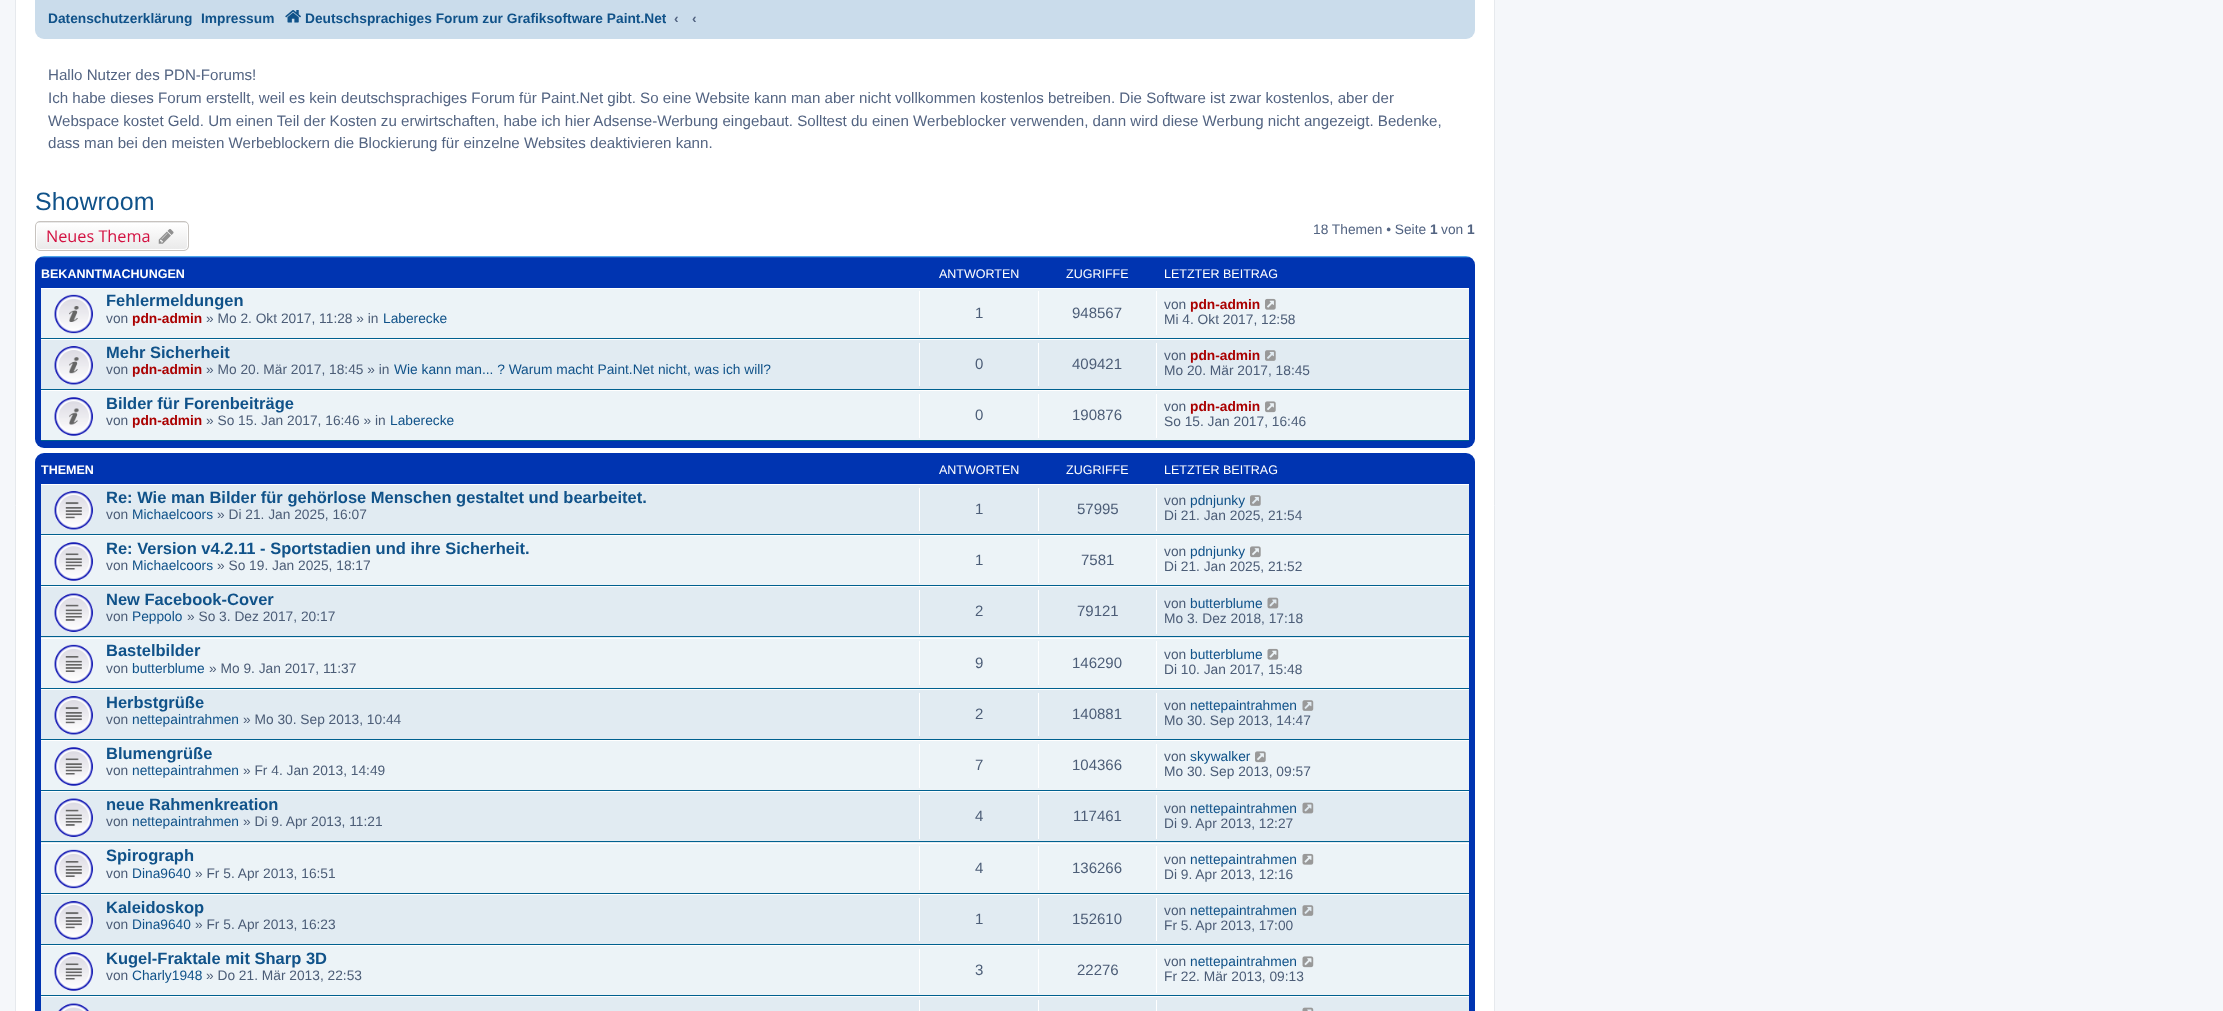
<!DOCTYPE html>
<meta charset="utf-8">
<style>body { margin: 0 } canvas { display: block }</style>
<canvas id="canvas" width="2223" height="1011"></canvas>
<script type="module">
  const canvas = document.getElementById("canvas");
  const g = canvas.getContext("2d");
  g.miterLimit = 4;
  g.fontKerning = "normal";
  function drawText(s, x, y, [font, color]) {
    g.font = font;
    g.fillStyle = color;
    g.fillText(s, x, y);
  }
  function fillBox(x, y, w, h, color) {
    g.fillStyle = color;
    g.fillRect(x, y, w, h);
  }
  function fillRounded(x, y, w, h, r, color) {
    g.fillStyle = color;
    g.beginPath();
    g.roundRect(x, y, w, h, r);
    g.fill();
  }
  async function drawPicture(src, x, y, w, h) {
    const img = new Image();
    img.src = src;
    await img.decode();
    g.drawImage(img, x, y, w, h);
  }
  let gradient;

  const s1 = ["bold 13.75px Liberation Sans", "#105289"];
  const s2 = ["bold 13.75px Liberation Sans", "#536482"];
  const s3 = ["15.12px Liberation Sans", "#536482"];
  const s4 = ["25px Liberation Sans", "#105289"];
  const s5 = ["16.25px Open Sans", "#D31141"];
  const s6 = ["13.75px Liberation Sans", "#536482"];
  const s7 = ["bold 12.5px Liberation Sans", "#FFFFFF"];
  const s8 = ["12.5px Liberation Sans", "#FFFFFF"];
  const s9 = ["bold 16.5px Liberation Sans", "#105289"];
  const s10 = ["13.75px Liberation Sans", "#4C5D77"];
  const s11 = ["bold 13.75px Liberation Sans", "#AA0000"];
  const s12 = ["13.75px Liberation Sans", "#105289"];
  const s13 = ["15px Liberation Sans", "#4C5D77"];

  fillBox(0, 0, 2223, 1011, "#F5F7FA");
  g.fillStyle = "#FFFFFF";
  g.beginPath();
  g.rect(15.5, -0.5, 1479, 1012);
  g.fill();
  g.strokeStyle = "#E6E9ED";
  g.stroke();
  fillRounded(35, -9, 1440, 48, 9, "#CADCEB");
  drawText("Datenschutzerklärung", 48, 23, s1);
  drawText("Impressum", 201, 23, s1);
  await drawPicture("pic1.png", 285, 10, 16, 13);
  g.save();
  g.beginPath();
  g.rect(283, 3, 383, 30);
  g.clip();
  drawText("Deutschsprachiges Forum zur Grafiksoftware Paint.Net", 305, 23, s1);
  g.restore();
  drawText("‹", 674, 23, s2);
  drawText("‹", 692, 23, s2);
  drawText("Hallo Nutzer des PDN-Forums!", 48, 80, s3);
  drawText("Ich habe dieses Forum erstellt, weil es kein deutschsprachiges Forum für Paint.Net gibt. So eine Website kann man aber nicht vollkommen kostenlos betreiben. Die Software ist zwar kostenlos, aber der", 48, 103, s3);
  drawText("Webspace kostet Geld. Um einen Teil der Kosten zu erwirtschaften, habe ich hier Adsense-Werbung eingebaut. Solltest du einen Werbeblocker verwenden, dann wird diese Werbung nicht angezeigt. Bedenke,", 48, 126, s3);
  drawText("dass man bei den meisten Werbeblockern die Blockierung für einzelne Websites deaktivieren kann.", 48, 148, s3);
  drawText("Showroom", 35, 210, s4);
  g.save();
  g.beginPath();
  g.roundRect(35, 221, 154, 30, 5);
  g.clip();
  gradient = g.createLinearGradient(112, 195, 112, 223);
  gradient.addColorStop(0, "#FFFFFF");
  gradient.addColorStop(1, "#E9E9E9");
  g.fillStyle = gradient;
  g.fillRect(35, 221, 154, 2);
  gradient = g.createLinearGradient(112, 223, 112, 250);
  gradient.addColorStop(0, "#FFFFFF");
  gradient.addColorStop(1, "#E9E9E9");
  g.fillStyle = gradient;
  g.fillRect(35, 223, 154, 27);
  g.restore();
  g.beginPath();
  g.roundRect(36.5, 223.5, 151, 26, 3.5);
  g.strokeStyle = "#FFFFFF";
  g.stroke();
  g.beginPath();
  g.roundRect(35.5, 221.5, 153, 29, 4.5);
  g.strokeStyle = "#C7C3BF";
  g.stroke();
  drawText("Neues Thema", 46, 242, s5);
  await drawPicture("pic2.png", 158, 229, 16, 15);
  drawText("18 Themen • Seite", 1313, 234, s6);
  drawText("1", 1430, 234, s2);
  drawText("von", 1441, 234, s6);
  drawText("1", 1467, 234, s2);
  gradient = g.createLinearGradient(755, 256, 755, 448);
  gradient.addColorStop(0, "#6ACEFF");
  gradient.addColorStop(0.01, "#0034B1");
  gradient.addColorStop(1, "#0034B1");
  g.fillStyle = gradient;
  g.beginPath();
  g.roundRect(35, 256, 1440, 192, 9);
  g.fill();
  drawText("BEKANNTMACHUNGEN", 41, 278, s7);
  drawText("ANTWORTEN", 939, 278, s8);
  drawText("ZUGRIFFE", 1066, 278, s8);
  drawText("LETZTER BEITRAG", 1164, 278, s8);
  fillBox(41, 289, 1428, 49, "#ECF3F7");
  fillBox(41, 288, 1428, 1, "#FFFFFF");
  fillBox(41, 338, 1428, 1, "#00608F");
  await drawPicture("pic3.png", 54, 294, 39, 40);
  drawText("Fehlermeldungen", 106, 306, s9);
  drawText("von", 106, 323, s10);
  drawText("pdn-admin", 132, 323, s11);
  drawText("» Mo 2. Okt 2017, 11:28 » in", 206, 323, s10);
  drawText("Laberecke", 383, 323, s12);
  fillBox(919, 291, 1, 44, "#FFFFFF");
  drawText("1", 975, 318, s13);
  fillBox(1038, 291, 1, 44, "#FFFFFF");
  drawText("948567", 1072, 318, s13);
  fillBox(1156, 291, 1, 44, "#FFFFFF");
  drawText("von", 1164, 309, s10);
  drawText("pdn-admin", 1190, 309, s11);
  await drawPicture("pic4.png", 1265, 298, 11, 12);
  drawText("Mi 4. Okt 2017, 12:58", 1164, 324, s10);
  fillBox(41, 340, 1428, 49, "#E1EBF2");
  fillBox(41, 339, 1428, 1, "#FFFFFF");
  fillBox(41, 389, 1428, 1, "#00608F");
  await drawPicture("pic5.png", 54, 346, 39, 39);
  drawText("Mehr Sicherheit", 106, 358, s9);
  drawText("von", 106, 374, s10);
  drawText("pdn-admin", 132, 374, s11);
  drawText("» Mo 20. Mär 2017, 18:45 » in", 206, 374, s10);
  drawText("Wie kann man... ? Warum macht Paint.Net nicht, was ich will?", 394, 374, s12);
  fillBox(919, 343, 1, 43, "#FFFFFF");
  drawText("0", 975, 369, s13);
  fillBox(1038, 343, 1, 43, "#FFFFFF");
  drawText("409421", 1072, 369, s13);
  fillBox(1156, 343, 1, 43, "#FFFFFF");
  drawText("von", 1164, 360, s10);
  drawText("pdn-admin", 1190, 360, s11);
  await drawPicture("pic6.png", 1265, 350, 11, 11);
  drawText("Mo 20. Mär 2017, 18:45", 1164, 375, s10);
  fillBox(41, 391, 1428, 49, "#ECF3F7");
  fillBox(41, 390, 1428, 1, "#FFFFFF");
  fillBox(41, 440, 1428, 1, "#00608F");
  await drawPicture("pic7.png", 54, 397, 39, 39);
  drawText("Bilder für Forenbeiträge", 106, 409, s9);
  drawText("von", 106, 425, s10);
  drawText("pdn-admin", 132, 425, s11);
  drawText("» So 15. Jan 2017, 16:46 » in", 206, 425, s10);
  drawText("Laberecke", 390, 425, s12);
  fillBox(919, 394, 1, 44, "#FFFFFF");
  drawText("0", 975, 420, s13);
  fillBox(1038, 394, 1, 44, "#FFFFFF");
  drawText("190876", 1072, 420, s13);
  fillBox(1156, 394, 1, 44, "#FFFFFF");
  drawText("von", 1164, 411, s10);
  drawText("pdn-admin", 1190, 411, s11);
  await drawPicture("pic8.png", 1265, 401, 11, 12);
  drawText("So 15. Jan 2017, 16:46", 1164, 426, s10);
  gradient = g.createLinearGradient(755, 452, 755, 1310);
  gradient.addColorStop(0, "#6ACEFF");
  gradient.addColorStop(0, "#0034B1");
  gradient.addColorStop(1, "#0034B1");
  g.fillStyle = gradient;
  g.beginPath();
  g.roundRect(35, 453, 1440, 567, 9);
  g.fill();
  drawText("THEMEN", 41, 474, s7);
  drawText("ANTWORTEN", 939, 474, s8);
  drawText("ZUGRIFFE", 1066, 474, s8);
  drawText("LETZTER BEITRAG", 1164, 474, s8);
  fillBox(41, 485, 1428, 49, "#E1EBF2");
  fillBox(41, 484, 1428, 1, "#FFFFFF");
  fillBox(41, 534, 1428, 1, "#00608F");
  await drawPicture("pic9.png", 54, 491, 39, 39);
  drawText("Re: Wie man Bilder für gehörlose Menschen gestaltet und bearbeitet.", 106, 503, s9);
  drawText("von", 106, 519, s10);
  drawText("Michaelcoors", 132, 519, s12);
  drawText("» Di 21. Jan 2025, 16:07", 217, 519, s10);
  fillBox(919, 488, 1, 43, "#FFFFFF");
  drawText("1", 975, 514, s13);
  fillBox(1038, 488, 1, 43, "#FFFFFF");
  drawText("57995", 1077, 514, s13);
  fillBox(1156, 488, 1, 43, "#FFFFFF");
  drawText("von", 1164, 505, s10);
  drawText("pdnjunky", 1190, 505, s12);
  await drawPicture("pic6.png", 1250, 495, 11, 11);
  drawText("Di 21. Jan 2025, 21:54", 1164, 520, s10);
  fillBox(41, 536, 1428, 49, "#ECF3F7");
  fillBox(41, 535, 1428, 1, "#FFFFFF");
  fillBox(41, 585, 1428, 1, "#00608F");
  await drawPicture("pic10.png", 54, 542, 39, 39);
  drawText("Re: Version v4.2.11 - Sportstadien und ihre Sicherheit.", 106, 554, s9);
  drawText("von", 106, 570, s10);
  drawText("Michaelcoors", 132, 570, s12);
  drawText("» So 19. Jan 2025, 18:17", 217, 570, s10);
  fillBox(919, 539, 1, 44, "#FFFFFF");
  drawText("1", 975, 565, s13);
  fillBox(1038, 539, 1, 44, "#FFFFFF");
  drawText("7581", 1081, 565, s13);
  fillBox(1156, 539, 1, 44, "#FFFFFF");
  drawText("von", 1164, 556, s10);
  drawText("pdnjunky", 1190, 556, s12);
  await drawPicture("pic8.png", 1250, 546, 11, 12);
  drawText("Di 21. Jan 2025, 21:52", 1164, 571, s10);
  fillBox(41, 587, 1428, 51, "#E1EBF2");
  fillBox(41, 586, 1428, 1, "#FFFFFF");
  fillBox(41, 636, 1428, 1, "#00608F");
  await drawPicture("pic11.png", 54, 593, 39, 39);
  drawText("New Facebook-Cover", 106, 605, s9);
  drawText("von", 106, 621, s10);
  drawText("Peppolo", 132, 621, s12);
  drawText("» So 3. Dez 2017, 20:17", 187, 621, s10);
  fillBox(919, 590, 1, 44, "#FFFFFF");
  drawText("2", 975, 616, s13);
  fillBox(1038, 590, 1, 44, "#FFFFFF");
  drawText("79121", 1077, 616, s13);
  fillBox(1156, 590, 1, 44, "#FFFFFF");
  drawText("von", 1164, 608, s10);
  drawText("butterblume", 1190, 608, s12);
  await drawPicture("pic12.png", 1267, 597, 12, 12);
  drawText("Mo 3. Dez 2018, 17:18", 1164, 623, s10);
  fillBox(41, 639, 1428, 49, "#ECF3F7");
  fillBox(41, 638, 1428, 1, "#FFFFFF");
  fillBox(41, 688, 1428, 1, "#00608F");
  await drawPicture("pic13.png", 54, 644, 39, 40);
  drawText("Bastelbilder", 106, 656, s9);
  drawText("von", 106, 673, s10);
  drawText("butterblume", 132, 673, s12);
  drawText("» Mo 9. Jan 2017, 11:37", 209, 673, s10);
  fillBox(919, 641, 1, 44, "#FFFFFF");
  drawText("9", 975, 668, s13);
  fillBox(1038, 641, 1, 44, "#FFFFFF");
  drawText("146290", 1072, 668, s13);
  fillBox(1156, 641, 1, 44, "#FFFFFF");
  drawText("von", 1164, 659, s10);
  drawText("butterblume", 1190, 659, s12);
  await drawPicture("pic14.png", 1267, 648, 12, 12);
  drawText("Di 10. Jan 2017, 15:48", 1164, 674, s10);
  fillBox(41, 690, 1428, 49, "#E1EBF2");
  fillBox(41, 689, 1428, 1, "#FFFFFF");
  fillBox(41, 739, 1428, 1, "#00608F");
  await drawPicture("pic9.png", 54, 696, 39, 39);
  drawText("Herbstgrüße", 106, 708, s9);
  drawText("von", 106, 724, s10);
  drawText("nettepaintrahmen", 132, 724, s12);
  drawText("» Mo 30. Sep 2013, 10:44", 243, 724, s10);
  fillBox(919, 693, 1, 43, "#FFFFFF");
  drawText("2", 975, 719, s13);
  fillBox(1038, 693, 1, 43, "#FFFFFF");
  drawText("140881", 1072, 719, s13);
  fillBox(1156, 693, 1, 43, "#FFFFFF");
  drawText("von", 1164, 710, s10);
  drawText("nettepaintrahmen", 1190, 710, s12);
  await drawPicture("pic15.png", 1302, 700, 12, 11);
  drawText("Mo 30. Sep 2013, 14:47", 1164, 725, s10);
  fillBox(41, 741, 1428, 49, "#ECF3F7");
  fillBox(41, 740, 1428, 1, "#FFFFFF");
  fillBox(41, 790, 1428, 1, "#00608F");
  await drawPicture("pic10.png", 54, 747, 39, 39);
  drawText("Blumengrüße", 106, 759, s9);
  drawText("von", 106, 775, s10);
  drawText("nettepaintrahmen", 132, 775, s12);
  drawText("» Fr 4. Jan 2013, 14:49", 243, 775, s10);
  fillBox(919, 744, 1, 44, "#FFFFFF");
  drawText("7", 975, 770, s13);
  fillBox(1038, 744, 1, 44, "#FFFFFF");
  drawText("104366", 1072, 770, s13);
  fillBox(1156, 744, 1, 44, "#FFFFFF");
  drawText("von", 1164, 761, s10);
  drawText("skywalker", 1190, 761, s12);
  await drawPicture("pic8.png", 1255, 751, 11, 12);
  drawText("Mo 30. Sep 2013, 09:57", 1164, 776, s10);
  fillBox(41, 792, 1428, 51, "#E1EBF2");
  fillBox(41, 791, 1428, 1, "#FFFFFF");
  fillBox(41, 841, 1428, 1, "#00608F");
  await drawPicture("pic11.png", 54, 798, 39, 39);
  drawText("neue Rahmenkreation", 106, 810, s9);
  drawText("von", 106, 826, s10);
  drawText("nettepaintrahmen", 132, 826, s12);
  drawText("» Di 9. Apr 2013, 11:21", 243, 826, s10);
  fillBox(919, 795, 1, 44, "#FFFFFF");
  drawText("4", 975, 821, s13);
  fillBox(1038, 795, 1, 44, "#FFFFFF");
  drawText("117461", 1073, 821, s13);
  fillBox(1156, 795, 1, 44, "#FFFFFF");
  drawText("von", 1164, 813, s10);
  drawText("nettepaintrahmen", 1190, 813, s12);
  await drawPicture("pic12.png", 1302, 802, 12, 12);
  drawText("Di 9. Apr 2013, 12:27", 1164, 828, s10);
  fillBox(41, 844, 1428, 49, "#ECF3F7");
  fillBox(41, 843, 1428, 1, "#FFFFFF");
  fillBox(41, 893, 1428, 1, "#00608F");
  await drawPicture("pic13.png", 54, 849, 39, 40);
  drawText("Spirograph", 106, 861, s9);
  drawText("von", 106, 878, s10);
  drawText("Dina9640", 132, 878, s12);
  drawText("» Fr 5. Apr 2013, 16:51", 195, 878, s10);
  fillBox(919, 846, 1, 44, "#FFFFFF");
  drawText("4", 975, 873, s13);
  fillBox(1038, 846, 1, 44, "#FFFFFF");
  drawText("136266", 1072, 873, s13);
  fillBox(1156, 846, 1, 44, "#FFFFFF");
  drawText("von", 1164, 864, s10);
  drawText("nettepaintrahmen", 1190, 864, s12);
  await drawPicture("pic14.png", 1302, 853, 12, 12);
  drawText("Di 9. Apr 2013, 12:16", 1164, 879, s10);
  fillBox(41, 895, 1428, 49, "#E1EBF2");
  fillBox(41, 894, 1428, 1, "#FFFFFF");
  fillBox(41, 944, 1428, 1, "#00608F");
  await drawPicture("pic9.png", 54, 901, 39, 39);
  drawText("Kaleidoskop", 106, 913, s9);
  drawText("von", 106, 929, s10);
  drawText("Dina9640", 132, 929, s12);
  drawText("» Fr 5. Apr 2013, 16:23", 195, 929, s10);
  fillBox(919, 898, 1, 43, "#FFFFFF");
  drawText("1", 975, 924, s13);
  fillBox(1038, 898, 1, 43, "#FFFFFF");
  drawText("152610", 1072, 924, s13);
  fillBox(1156, 898, 1, 43, "#FFFFFF");
  drawText("von", 1164, 915, s10);
  drawText("nettepaintrahmen", 1190, 915, s12);
  await drawPicture("pic15.png", 1302, 905, 12, 11);
  drawText("Fr 5. Apr 2013, 17:00", 1164, 930, s10);
  fillBox(41, 946, 1428, 49, "#ECF3F7");
  fillBox(41, 945, 1428, 1, "#FFFFFF");
  fillBox(41, 995, 1428, 1, "#00608F");
  await drawPicture("pic10.png", 54, 952, 39, 39);
  drawText("Kugel-Fraktale mit Sharp 3D", 106, 964, s9);
  drawText("von", 106, 980, s10);
  drawText("Charly1948", 132, 980, s12);
  drawText("» Do 21. Mär 2013, 22:53", 206, 980, s10);
  fillBox(919, 949, 1, 44, "#FFFFFF");
  drawText("3", 975, 975, s13);
  fillBox(1038, 949, 1, 44, "#FFFFFF");
  drawText("22276", 1077, 975, s13);
  fillBox(1156, 949, 1, 44, "#FFFFFF");
  drawText("von", 1164, 966, s10);
  drawText("nettepaintrahmen", 1190, 966, s12);
  await drawPicture("pic16.png", 1302, 956, 12, 12);
  drawText("Fr 22. Mär 2013, 09:13", 1164, 981, s10);
  fillBox(41, 997, 1428, 14, "#E1EBF2");
  fillBox(41, 996, 1428, 1, "#FFFFFF");
  await drawPicture("pic17.png", 58, 1003, 31, 8);
  fillBox(919, 1000, 1, 11, "#FFFFFF");
  fillBox(1038, 1000, 1, 11, "#FFFFFF");
  fillBox(1156, 1000, 1, 11, "#FFFFFF");
  await drawPicture("pic18.png", 1302, 1007, 12, 4);
</script>
